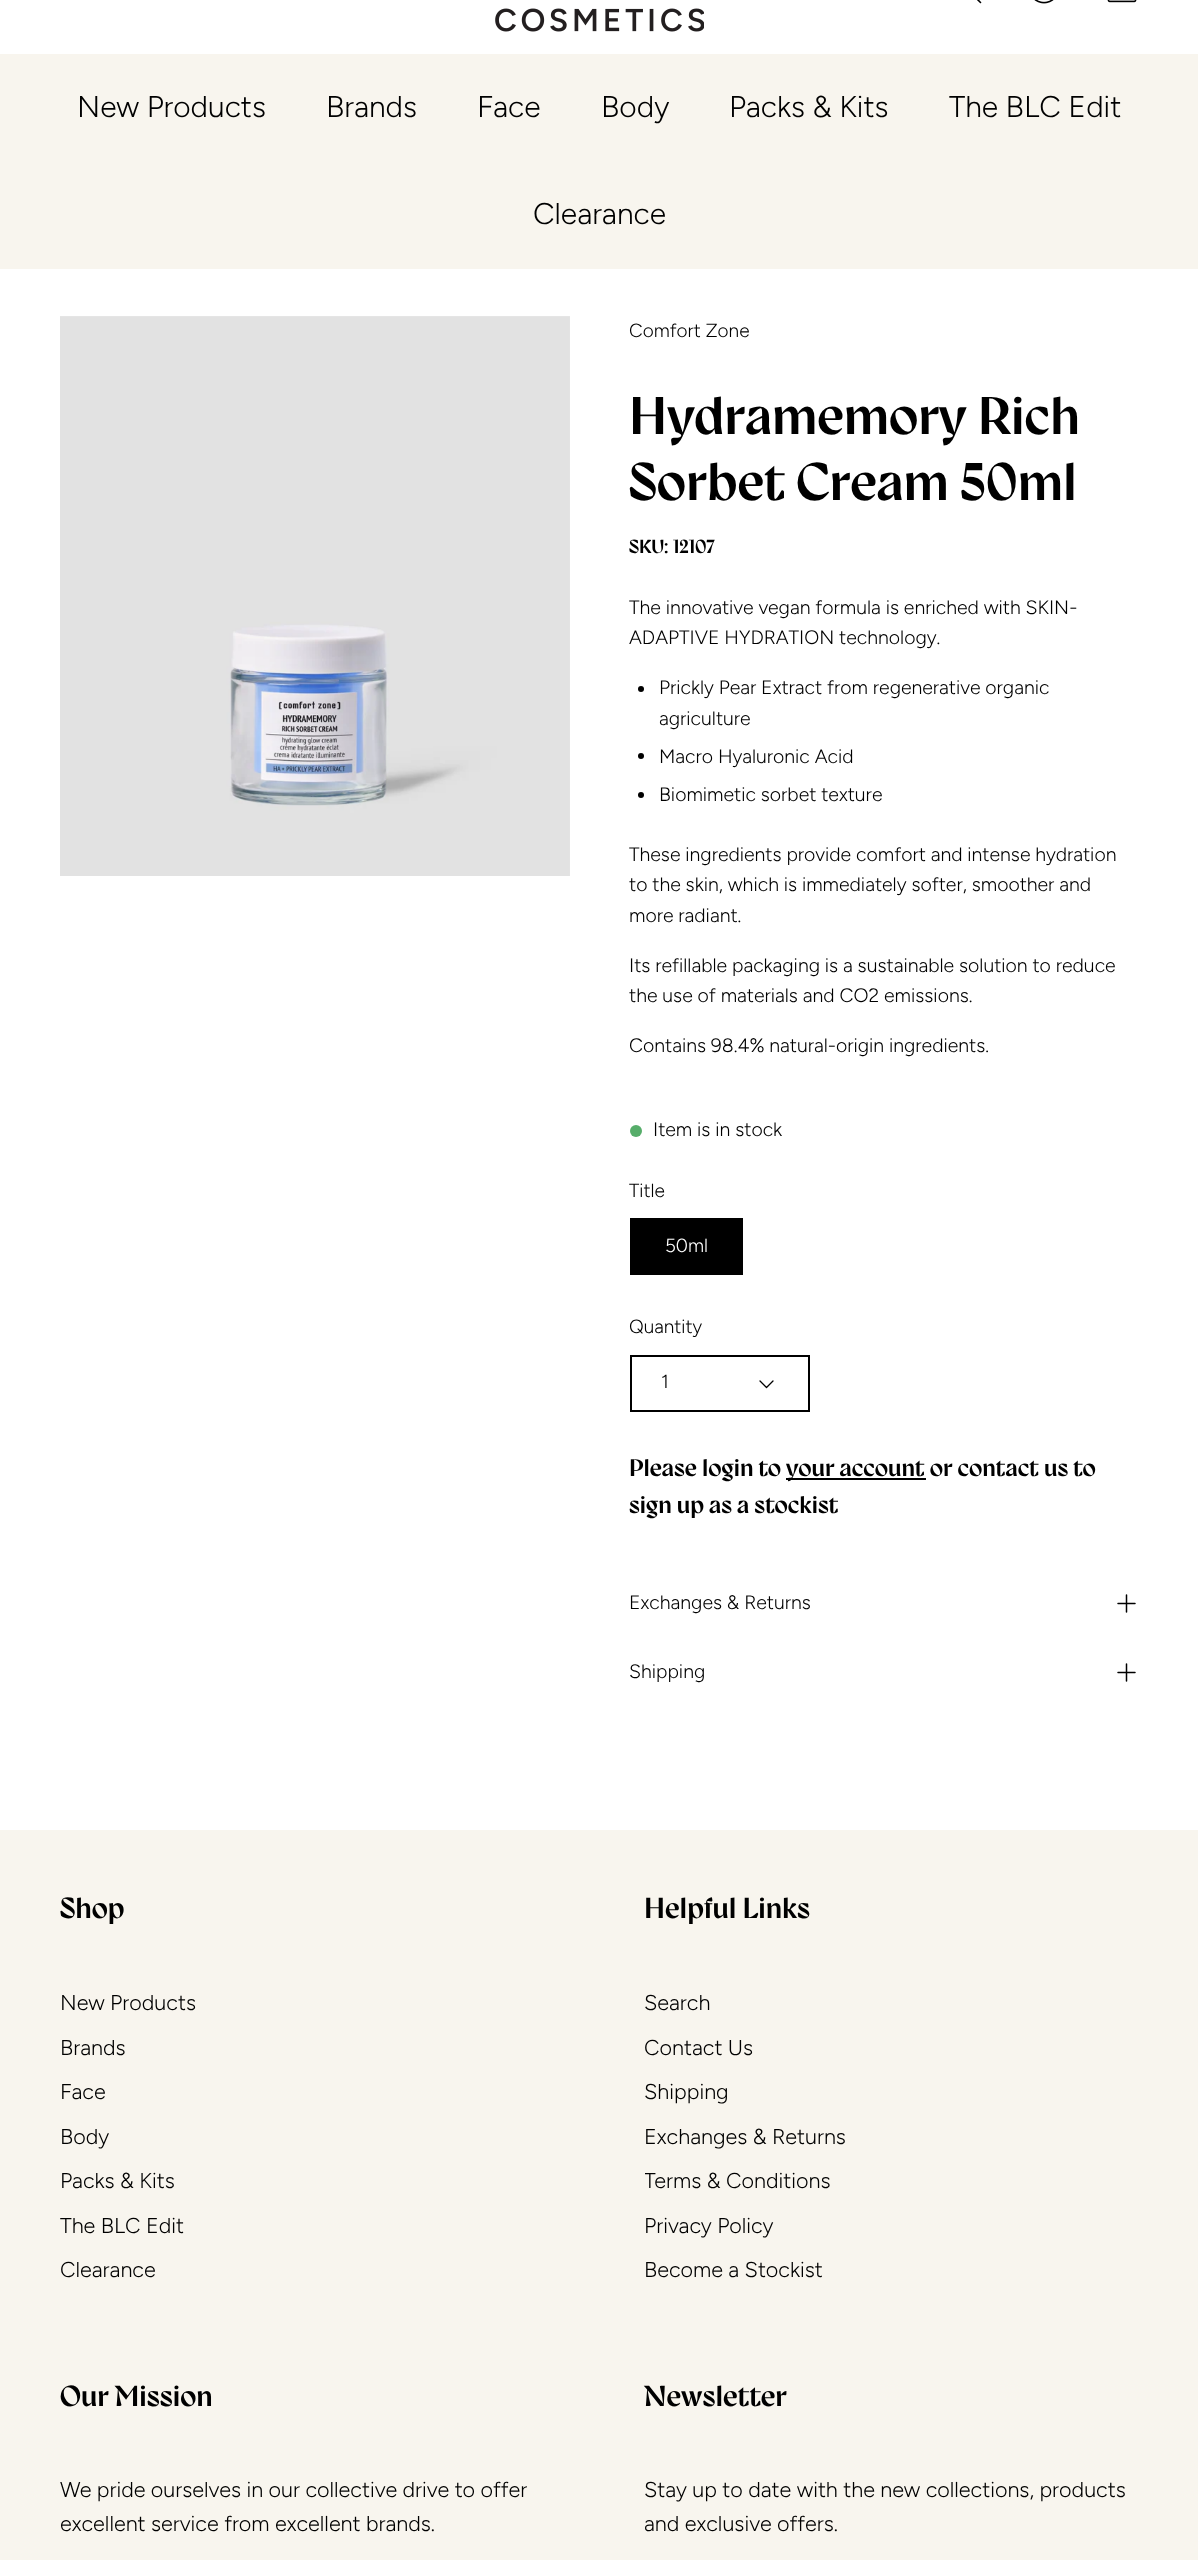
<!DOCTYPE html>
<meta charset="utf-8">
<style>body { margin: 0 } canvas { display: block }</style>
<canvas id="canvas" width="1198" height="2560"></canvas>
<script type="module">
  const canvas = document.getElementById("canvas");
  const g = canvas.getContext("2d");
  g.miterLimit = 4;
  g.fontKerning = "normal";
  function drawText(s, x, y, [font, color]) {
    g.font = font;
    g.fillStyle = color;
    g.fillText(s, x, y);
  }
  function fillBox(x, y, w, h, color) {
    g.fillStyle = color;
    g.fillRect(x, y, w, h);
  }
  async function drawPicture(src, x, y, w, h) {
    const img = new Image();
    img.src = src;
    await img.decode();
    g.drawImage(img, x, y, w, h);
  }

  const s1 = ["300 30px Figtree", "#000000"];
  const s2 = ["300 19px Figtree", "#000000"];
  const s3 = ["bold 52.75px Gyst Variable", "#000000"];
  const s4 = ["bold 19px Gyst Variable", "#000000"];
  const s5 = ["300 19.45px Figtree", "#000000"];
  const s6 = ["300 19px Figtree", "#FFFFFF"];
  const s7 = ["bold 24px Gyst Variable", "#000000"];
  const s8 = ["bold 29px Gyst Variable", "#000000"];
  const s9 = ["300 21.6px Figtree", "#000000"];

  fillBox(0, 0, 1198, 2560, "#FFFFFF");
  g.beginPath();
  g.moveTo(964, -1);
  g.bezierCurveTo(981, -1, 981, -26.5, 964, -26.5);
  g.bezierCurveTo(947.5, -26.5, 947.5, -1, 964, -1);
  g.closePath();
  g.moveTo(973, -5);
  g.lineTo(980.5, 2.5);
  g.strokeStyle = "#000000";
  g.lineWidth = 1.6;
  g.lineCap = "round";
  g.lineJoin = "round";
  g.stroke();
  await drawPicture("pic1.png", 1034, 0, 20, 4);
  await drawPicture("pic2.png", 1107, 0, 30, 3);
  await drawPicture("pic3.png", 495, 8, 209, 24);
  fillBox(0, 54, 1198, 215, "#F8F5EE");
  drawText("New Products", 77, 117, s1);
  drawText("Brands", 326, 117, s1);
  drawText("Face", 477, 117, s1);
  drawText("Body", 601, 117, s1);
  drawText("Packs & Kits", 729, 117, s1);
  drawText("The BLC Edit", 949, 117, s1);
  drawText("Clearance", 533, 224, s1);
  await drawPicture("pic4.png", 60, 316, 510, 560);
  drawText("Comfort Zone", 629, 337, s2);
  drawText("Hydramemory Rich", 629, 434, s3);
  drawText("Sorbet Cream 50ml", 629, 500, s3);
  drawText("SKU:", 629, 553, s4);
  drawText("12107", 673, 553, s4);
  drawText("The innovative vegan formula is enriched with SKIN-", 629, 614, s5);
  drawText("ADAPTIVE HYDRATION technology.", 629, 644, s5);
  g.beginPath();
  g.arc(641, 689, 3, 0, Math.PI * 2);
  g.fill();
  drawText("Prickly Pear Extract from regenerative organic", 659, 694, s5);
  drawText("agriculture", 659, 725, s5);
  g.beginPath();
  g.arc(641, 756, 3, 0, Math.PI * 2);
  g.fill();
  drawText("Macro Hyaluronic Acid", 659, 763, s5);
  g.beginPath();
  g.arc(641, 795, 3, 0, Math.PI * 2);
  g.fill();
  drawText("Biomimetic sorbet texture", 659, 801, s5);
  drawText("These ingredients provide comfort and intense hydration", 629, 861, s5);
  drawText("to the skin, which is immediately softer, smoother and", 629, 891, s5);
  drawText("more radiant.", 629, 922, s5);
  drawText("Its refillable packaging is a sustainable solution to reduce", 629, 972, s5);
  drawText("the use of materials and CO2 emissions.", 629, 1002, s5);
  drawText("Contains 98.4% natural-origin ingredients.", 629, 1052, s5);
  g.fillStyle = "#56AD6A";
  g.beginPath();
  g.arc(636, 1131, 6, 0, Math.PI * 2);
  g.fill();
  drawText("Item is in stock", 653, 1136, s5);
  drawText("Title", 629, 1197, s2);
  fillBox(630, 1218, 113, 57, "#000000");
  drawText("50ml", 665, 1252, s6);
  drawText("Quantity", 629, 1333, s2);
  g.lineWidth = 2;
  g.lineJoin = "miter";
  g.strokeRect(631, 1356, 178, 55);
  drawText("1", 661, 1388, s2);
  g.beginPath();
  g.moveTo(773, 1381);
  g.lineTo(766.5, 1387.5);
  g.lineTo(760, 1381);
  g.lineWidth = 1.3;
  g.lineJoin = "round";
  g.stroke();
  drawText("Please login to", 629, 1476, s7);
  fillBox(786, 1478, 140, 2, "#000000");
  drawText("your account or contact us to", 786, 1476, s7);
  drawText("sign up as a stockist", 629, 1513, s7);
  drawText("Exchanges & Returns", 629, 1609, s5);
  g.beginPath();
  g.moveTo(1118, 1603.5);
  g.lineTo(1135, 1603.5);
  g.moveTo(1126.5, 1595);
  g.lineTo(1126.5, 1612);
  g.lineWidth = 1.5;
  g.stroke();
  drawText("Shipping", 629, 1678, s5);
  g.beginPath();
  g.moveTo(1118, 1672.5);
  g.lineTo(1135, 1672.5);
  g.moveTo(1126.5, 1664);
  g.lineTo(1126.5, 1681);
  g.stroke();
  fillBox(0, 1830, 1198, 730, "#F8F5EE");
  drawText("Shop", 60, 1918, s8);
  drawText("New Products", 60, 2010, s9);
  drawText("Brands", 60, 2055, s9);
  drawText("Face", 60, 2099, s9);
  drawText("Body", 60, 2144, s9);
  drawText("Packs & Kits", 60, 2188, s9);
  drawText("The BLC Edit", 60, 2233, s9);
  drawText("Clearance", 60, 2277, s9);
  drawText("Helpful Links", 644, 1918, s8);
  drawText("Search", 644, 2010, s9);
  drawText("Contact Us", 644, 2055, s9);
  drawText("Shipping", 644, 2099, s9);
  drawText("Exchanges & Returns", 644, 2144, s9);
  g.save();
  g.beginPath();
  g.rect(645, 1986, 494, 302);
  g.clip();
  drawText("Terms & Conditions", 644, 2188, s9);
  g.restore();
  drawText("Privacy Policy", 644, 2233, s9);
  drawText("Become a Stockist", 644, 2277, s9);
  drawText("Our Mission", 60, 2406, s8);
  drawText("We pride ourselves in our collective drive to offer", 60, 2497, s9);
  drawText("excellent service from excellent brands.", 60, 2531, s9);
  drawText("Newsletter", 644, 2406, s8);
  drawText("Stay up to date with the new collections, products", 644, 2497, s9);
  drawText("and exclusive offers.", 644, 2531, s9);
</script>
